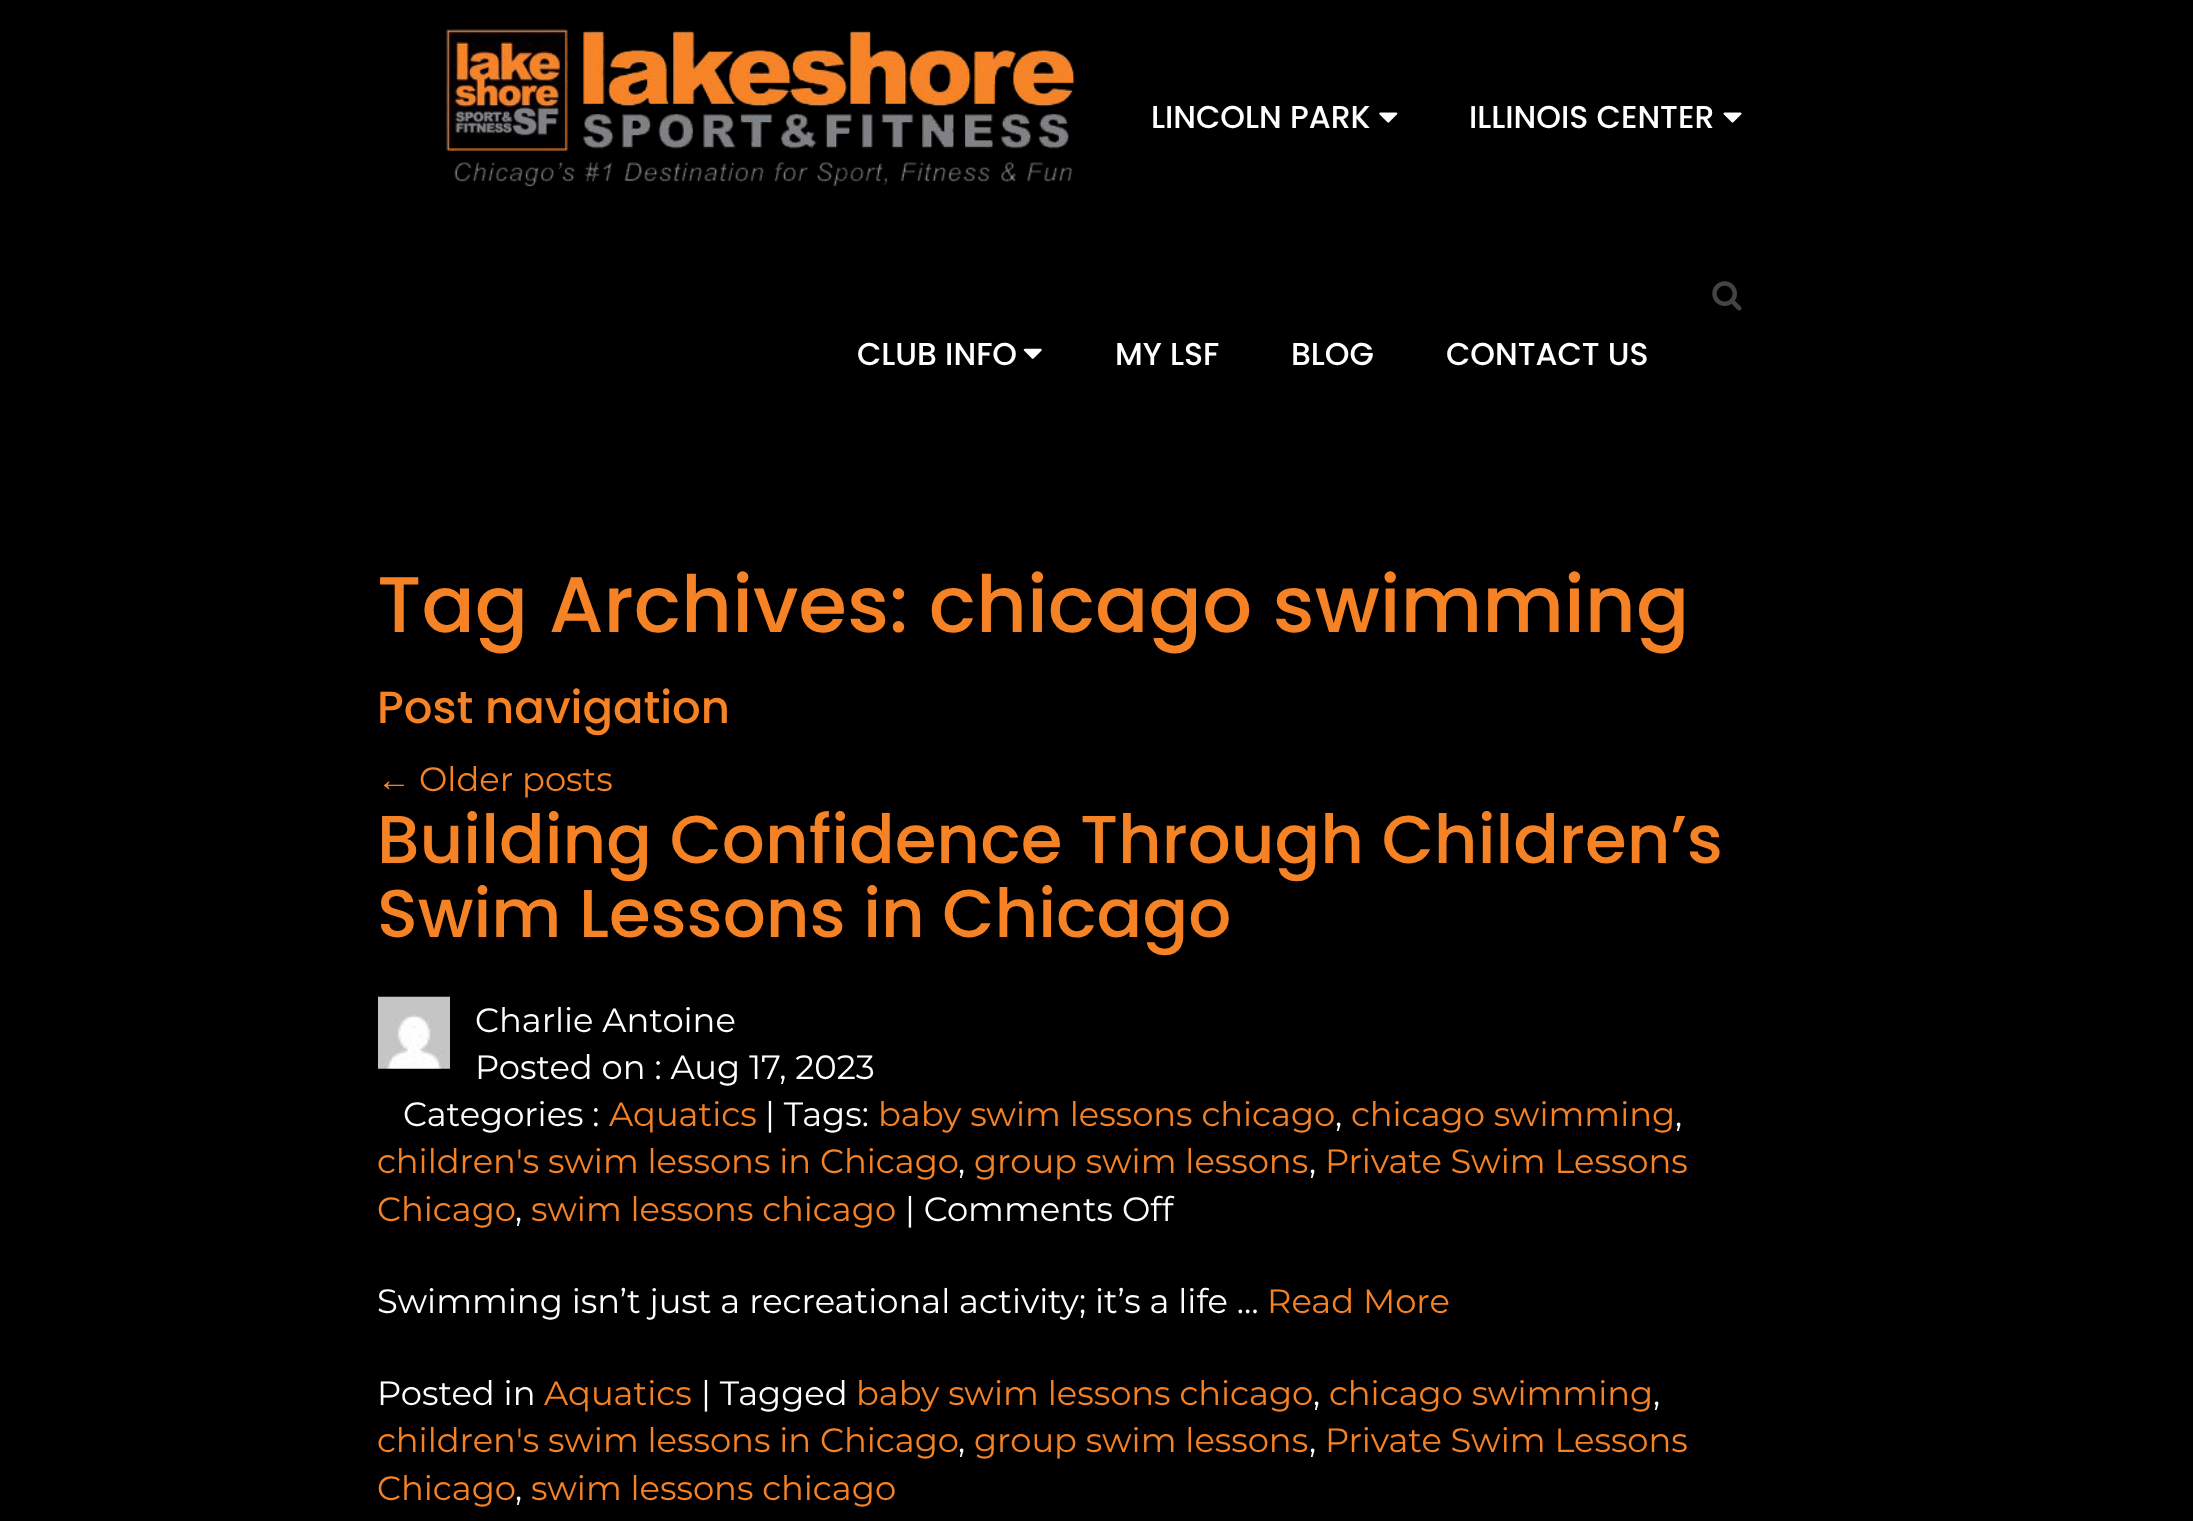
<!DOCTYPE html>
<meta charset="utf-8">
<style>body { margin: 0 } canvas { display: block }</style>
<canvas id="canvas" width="2193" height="1521"></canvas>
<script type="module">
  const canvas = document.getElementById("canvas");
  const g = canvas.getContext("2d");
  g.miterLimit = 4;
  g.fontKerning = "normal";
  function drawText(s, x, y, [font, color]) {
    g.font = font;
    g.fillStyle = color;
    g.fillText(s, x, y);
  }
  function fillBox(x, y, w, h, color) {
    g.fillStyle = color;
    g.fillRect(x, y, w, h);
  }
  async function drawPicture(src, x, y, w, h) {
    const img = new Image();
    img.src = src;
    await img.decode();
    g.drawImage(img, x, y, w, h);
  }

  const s1 = ["500 31.5px Poppins", "#FFFFFF"];
  const s2 = ["500 78.75px Poppins", "#F68226"];
  const s3 = ["500 45px Poppins", "#F68226"];
  const s4 = ["33.75px Liberation Sans", "#F68226"];
  const s5 = ["33.75px Montserrat", "#F68226"];
  const s6 = ["500 67.5px Poppins", "#F68226"];
  const s7 = ["33.75px Montserrat", "#FFFFFF"];

  fillBox(0, 0, 2193, 1521, "#000000");
  await drawPicture("pic1.png", 446, 29, 629, 158);
  drawText("LINCOLN PARK", 1151, 128, s1);
  await drawPicture("pic2.png", 1379, 112, 19, 11);
  drawText("ILLINOIS CENTER", 1469, 128, s1);
  await drawPicture("pic3.png", 1723, 112, 19, 11);
  await drawPicture("pic4.png", 1712, 281, 30, 30);
  drawText("CLUB INFO", 857, 365, s1);
  await drawPicture("pic5.png", 1023, 348, 19, 11);
  drawText("MY LSF", 1115, 365, s1);
  drawText("BLOG", 1291, 365, s1);
  drawText("CONTACT US", 1446, 365, s1);
  drawText("Tag Archives: chicago swimming", 377, 632, s2);
  drawText("Post navigation", 377, 723, s3);
  drawText("←", 377, 791, s4);
  drawText("Older posts", 419, 791, s5);
  drawText("Building Confidence Through Children’s", 377, 863, s6);
  drawText("Swim Lessons in Chicago", 377, 937, s6);
  await drawPicture("pic6.png", 378, 996, 72, 73);
  drawText("Charlie Antoine", 475, 1032, s7);
  drawText("Posted on : Aug 17, 2023", 475, 1079, s7);
  drawText("Categories :", 403, 1126, s7);
  drawText("Aquatics", 609, 1126, s5);
  drawText("| Tags:", 765, 1126, s7);
  drawText("baby swim lessons chicago", 878, 1126, s5);
  drawText(",", 1335, 1126, s7);
  drawText("chicago swimming", 1351, 1126, s5);
  drawText(",", 1675, 1126, s7);
  drawText("children's swim lessons in Chicago", 377, 1173, s5);
  drawText(",", 958, 1173, s7);
  drawText("group swim lessons", 974, 1173, s5);
  drawText(",", 1309, 1173, s7);
  drawText("Private Swim Lessons", 1325, 1173, s5);
  drawText("Chicago", 377, 1221, s5);
  drawText(",", 515, 1221, s7);
  drawText("swim lessons chicago", 531, 1221, s5);
  drawText("| Comments Off", 905, 1221, s7);
  drawText("Swimming isn’t just a recreational activity; it’s a life …", 377, 1313, s7);
  drawText("Read More", 1267, 1313, s5);
  drawText("Posted in", 377, 1405, s7);
  drawText("Aquatics", 544, 1405, s5);
  drawText("| Tagged", 701, 1405, s7);
  drawText("baby swim lessons chicago", 856, 1405, s5);
  drawText(",", 1313, 1405, s7);
  drawText("chicago swimming", 1329, 1405, s5);
  drawText(",", 1653, 1405, s7);
  drawText("children's swim lessons in Chicago", 377, 1452, s5);
  drawText(",", 958, 1452, s7);
  drawText("group swim lessons", 974, 1452, s5);
  drawText(",", 1309, 1452, s7);
  drawText("Private Swim Lessons", 1325, 1452, s5);
  drawText("Chicago", 377, 1500, s5);
  drawText(",", 515, 1500, s7);
  drawText("swim lessons chicago", 531, 1500, s5);
</script>
